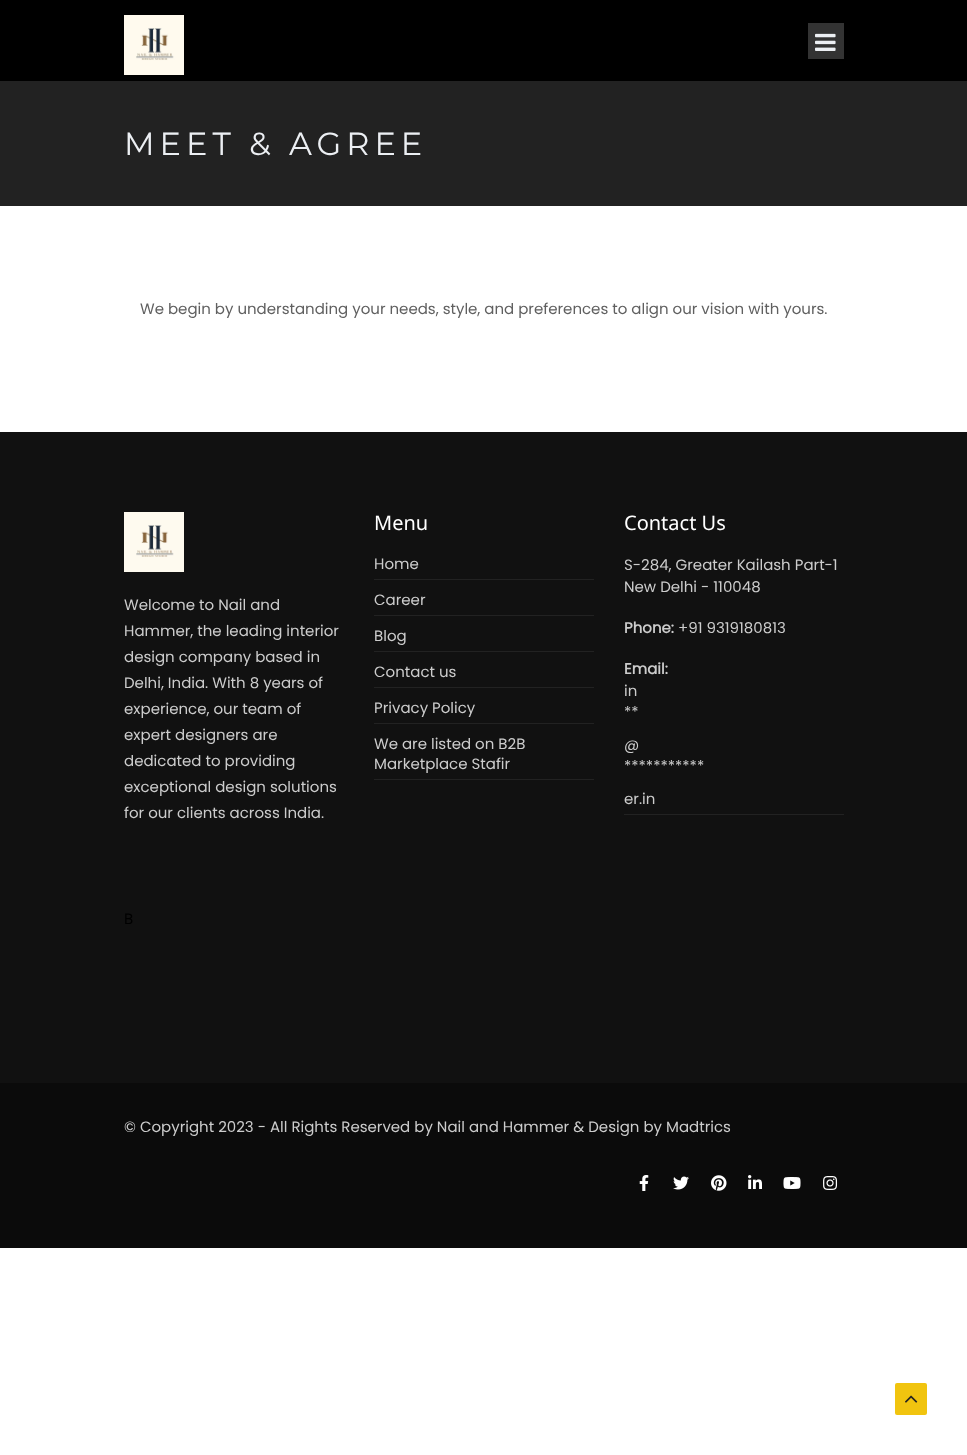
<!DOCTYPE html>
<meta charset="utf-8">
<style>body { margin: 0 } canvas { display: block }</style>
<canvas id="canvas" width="967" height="1455"></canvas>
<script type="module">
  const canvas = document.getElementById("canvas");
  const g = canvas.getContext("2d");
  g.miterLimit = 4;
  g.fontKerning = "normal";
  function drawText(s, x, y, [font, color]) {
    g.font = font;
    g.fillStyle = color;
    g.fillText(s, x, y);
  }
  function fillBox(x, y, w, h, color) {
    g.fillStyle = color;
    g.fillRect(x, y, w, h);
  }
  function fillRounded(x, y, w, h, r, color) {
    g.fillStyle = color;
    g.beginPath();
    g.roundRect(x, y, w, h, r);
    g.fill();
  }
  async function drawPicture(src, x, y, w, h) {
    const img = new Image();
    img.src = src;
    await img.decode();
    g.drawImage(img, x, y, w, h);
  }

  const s1 = ["100 32px Montserrat", "#ECEFF3"];
  const s2 = ["15px Poppins", "#606060"];
  const s3 = ["15px Poppins", "#CCCCCC"];
  const s4 = ["15px Poppins", "#000000"];
  const s5 = ["20px Noto Sans", "#FFFFFF"];
  const s6 = ["bold 15px Poppins", "#CCCCCC"];

  fillBox(0, 0, 967, 1455, "#FFFFFF");
  fillBox(0, 0, 967, 81, "#000000");
  await drawPicture("pic1.png", 124, 15, 60, 60);
  fillBox(808, 23, 36, 36, "#333333");
  await drawPicture("pic2.png", 815, 33, 21, 18);
  fillBox(0, 81, 967, 125, "#222222");
  g.letterSpacing = "5px";
  drawText("MEET & AGREE", 124, 155, s1);
  g.letterSpacing = "0px";
  drawText("We begin by understanding your needs, style, and preferences to align our vision with yours.", 140, 314, s2);
  fillBox(0, 432, 967, 651, "#111111");
  await drawPicture("pic3.png", 124, 512, 60, 60);
  drawText("Welcome to Nail and", 124, 610, s3);
  drawText("Hammer, the leading interior", 124, 636, s3);
  drawText("design company based in", 124, 662, s3);
  drawText("Delhi, India. With 8 years of", 124, 688, s3);
  drawText("experience, our team of", 124, 714, s3);
  drawText("expert designers are", 124, 740, s3);
  drawText("dedicated to providing", 124, 766, s3);
  drawText("exceptional design solutions", 124, 792, s3);
  drawText("for our clients across India.", 124, 818, s3);
  drawText("B", 124, 924, s4);
  drawText("Menu", 374, 530, s5);
  fillBox(374, 579, 220, 1, "#222222");
  drawText("Home", 374, 569, s3);
  fillBox(374, 615, 220, 1, "#222222");
  drawText("Career", 374, 605, s3);
  fillBox(374, 651, 220, 1, "#222222");
  drawText("Blog", 374, 641, s3);
  fillBox(374, 687, 220, 1, "#222222");
  drawText("Contact us", 374, 677, s3);
  fillBox(374, 723, 220, 1, "#222222");
  drawText("Privacy Policy", 374, 713, s3);
  fillBox(374, 779, 220, 1, "#222222");
  drawText("We are listed on B2B", 374, 749, s3);
  drawText("Marketplace Stafir", 374, 769, s3);
  drawText("Contact Us", 624, 530, s5);
  drawText("S-284, Greater Kailash Part-1", 624, 570, s3);
  drawText("New Delhi - 110048", 624, 592, s3);
  drawText("Phone:", 624, 633, s6);
  drawText("+91 9319180813", 678, 633, s3);
  drawText("Email:", 624, 674, s6);
  fillBox(624, 814, 220, 1, "#222222");
  drawText("in", 624, 696, s3);
  drawText("**", 624, 717, s3);
  drawText("@", 624, 750, s3);
  drawText("***********", 624, 771, s3);
  drawText("er.in", 624, 804, s3);
  fillBox(0, 1083, 967, 165, "#0B0B0B");
  drawText("© Copyright 2023 - All Rights Reserved by Nail and Hammer & Design by Madtrics", 124, 1132, s3);
  await drawPicture("pic4.png", 639, 1175, 10, 16);
  await drawPicture("pic5.png", 673, 1176, 16, 14);
  await drawPicture("pic6.png", 711, 1175, 16, 16);
  await drawPicture("pic7.png", 748, 1175, 14, 14);
  await drawPicture("pic8.png", 783, 1177, 18, 12);
  await drawPicture("pic9.png", 823, 1176, 15, 14);
  fillRounded(895, 1383, 32, 32, 2, "#F1C40F");
  await drawPicture("pic10.png", 905, 1395, 13, 8);
</script>
